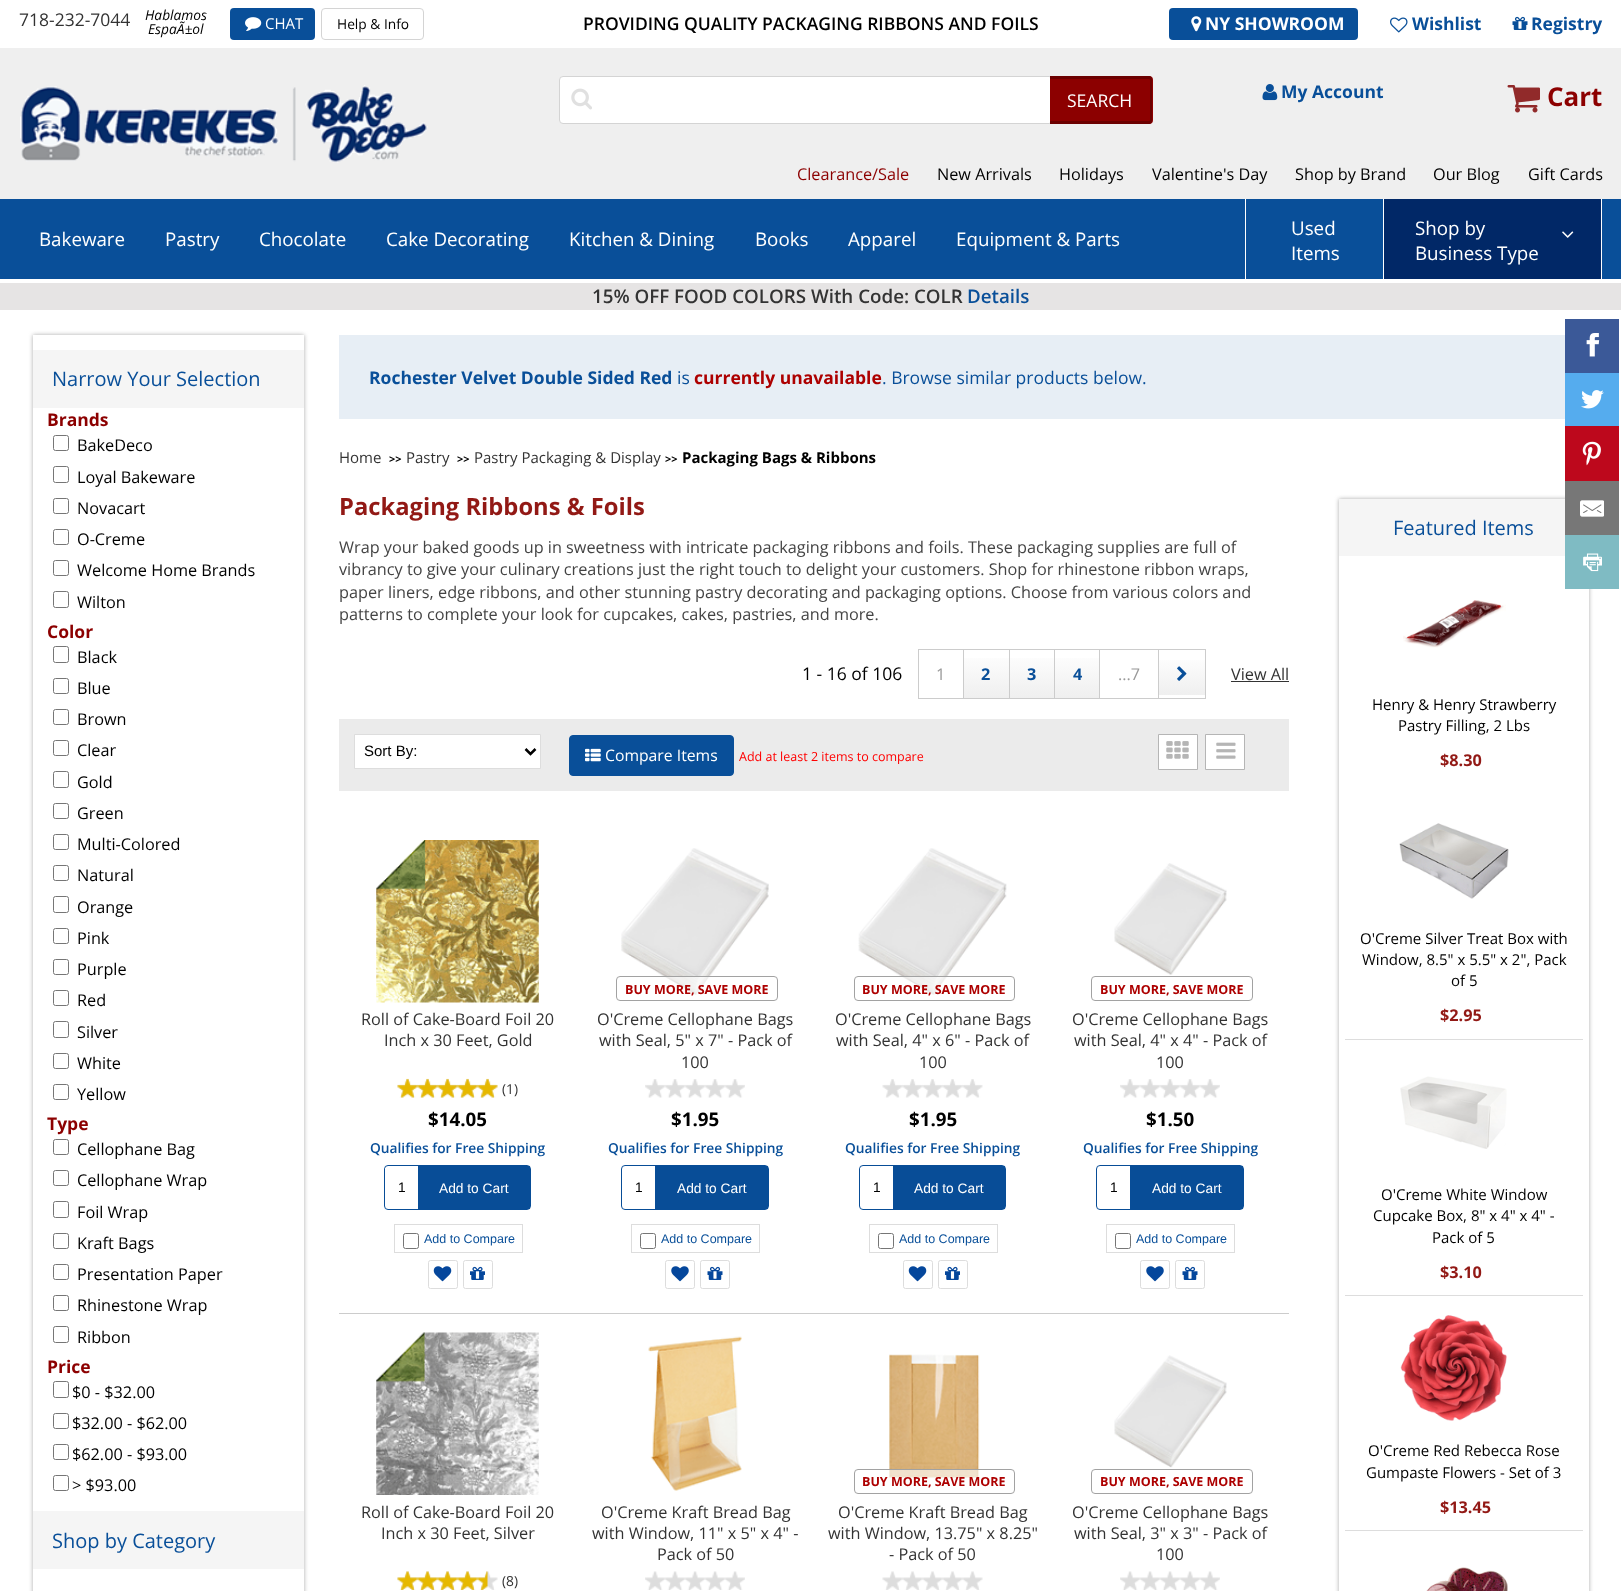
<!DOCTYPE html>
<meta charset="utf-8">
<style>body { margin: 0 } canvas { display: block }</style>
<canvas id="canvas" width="1621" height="1591"></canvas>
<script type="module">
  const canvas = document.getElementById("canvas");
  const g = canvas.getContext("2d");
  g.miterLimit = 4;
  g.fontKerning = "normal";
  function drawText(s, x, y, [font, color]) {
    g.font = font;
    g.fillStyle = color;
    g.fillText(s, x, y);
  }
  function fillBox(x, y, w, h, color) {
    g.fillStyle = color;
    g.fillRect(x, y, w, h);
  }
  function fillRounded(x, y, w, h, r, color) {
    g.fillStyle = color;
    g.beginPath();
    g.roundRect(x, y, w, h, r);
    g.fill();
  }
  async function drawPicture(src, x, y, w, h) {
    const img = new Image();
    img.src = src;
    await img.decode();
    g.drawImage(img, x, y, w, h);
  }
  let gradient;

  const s1 = ["17.5px Open Sans", "#333333"];
  const s2 = ["italic 13.75px Open Sans", "#000000"];
  const s3 = ["15px Open Sans", "#FFFFFF"];
  const s4 = ["13.75px Open Sans", "#000000"];
  const s5 = ["600 17.5px Open Sans", "#000000"];
  const s6 = ["bold 17.5px Open Sans", "#FFFFFF"];
  const s7 = ["bold 17.5px Open Sans", "#094F99"];
  const s8 = ["17.5px Open Sans", "#FFFFFF"];
  const s9 = ["bold 26px Open Sans", "#8C0000"];
  const s10 = ["16.25px Open Sans", "#8C0000"];
  const s11 = ["16.25px Open Sans", "#000000"];
  const s12 = ["18.75px Open Sans", "#FFFFFF"];
  const s13 = ["600 18.75px Open Sans", "#333333"];
  const s14 = ["600 18.75px Open Sans", "#094F99"];
  const s15 = ["20px Open Sans", "#094F99"];
  const s16 = ["bold 17.5px Open Sans", "#8C0000"];
  const s17 = ["17.5px Open Sans", "#094F99"];
  const s18 = ["bold 17.5px Open Sans", "#AD0000"];
  const s19 = ["15px Open Sans", "#333333"];
  const s20 = ["bold 11px Open Sans", "#000000"];
  const s21 = ["bold 15px Open Sans", "#000000"];
  const s22 = ["bold 23.75px Open Sans", "#921915"];
  const s23 = ["16.25px Open Sans", "#444444"];
  const s24 = ["17.5px Open Sans", "#000000"];
  const s25 = ["16.25px Open Sans", "#999999"];
  const s26 = ["bold 16.25px Open Sans", "#094F99"];
  const s27 = ["16.25px Open Sans", "#333333"];
  const s28 = ["15px Liberation Sans", "#000000"];
  const s29 = ["15.75px Open Sans", "#FFFFFF"];
  const s30 = ["12.5px Open Sans", "#FF0000"];
  const s31 = ["13.75px Open Sans", "#333333"];
  const s32 = ["bold 18.75px Open Sans", "#000000"];
  const s33 = ["600 13.75px Open Sans", "#094F99"];
  const s34 = ["13.75px Liberation Sans", "#000000"];
  const s35 = ["13.75px Liberation Sans", "#FFFFFF"];
  const s36 = ["12.5px Liberation Sans", "#094F99"];
  const s37 = ["bold 12.5px Open Sans", "#AD0000"];
  const s38 = ["15px Open Sans", "#000000"];
  const s39 = ["bold 16.25px Open Sans", "#921915"];

  fillBox(0, 0, 1621, 1591, "#FFFFFF");
  drawText("718-232-7044", 19, 26, s1);
  drawText("Hablamos", 145, 20, s2);
  drawText("EspaÃ±ol", 148, 34, s2);
  fillRounded(230, 8, 85, 32, 4, "#094F99");
  await drawPicture("pic1.png", 245, 17, 17, 14);
  drawText("CHAT", 265, 29, s3);
  g.beginPath();
  g.roundRect(321.5, 8.5, 102, 31, 3.5);
  g.strokeStyle = "#D4D4D4";
  g.stroke();
  drawText("Help & Info", 337, 29, s4);
  drawText("PROVIDING QUALITY PACKAGING RIBBONS AND FOILS", 583, 30, s5);
  fillRounded(1169, 8, 189, 32, 4, "#094F99");
  await drawPicture("pic2.png", 1191, 16, 11, 16);
  drawText("NY SHOWROOM", 1205, 30, s6);
  await drawPicture("pic3.png", 1390, 17, 18, 16);
  drawText("Wishlist", 1412, 30, s7);
  await drawPicture("pic4.png", 1512, 16, 16, 14);
  drawText("Registry", 1531, 30, s7);
  fillBox(0, 48, 1621, 151, "#EFEFEF");
  await drawPicture("pic5.png", 20, 85, 408, 78);
  g.fillStyle = "#FFFFFF";
  g.beginPath();
  g.roundRect(559.5, 76.5, 493, 47, 3.5);
  g.fill();
  g.stroke();
  await drawPicture("pic6.png", 571, 88, 21, 22);
  g.fillStyle = "#8C0000";
  g.beginPath();
  g.roundRect(1050, 76, 103, 48, [0, 4, 4, 0]);
  g.fill();
  g.fillStyle = "#6C0000";
  g.beginPath();
  g.moveTo(1050, 76);
  g.lineTo(1149, 76);
  g.bezierCurveTo(1151, 76, 1152, 78, 1152, 80);
  g.lineTo(1152, 120);
  g.bezierCurveTo(1152, 122, 1151, 124, 1149, 124);
  g.lineTo(1050, 124);
  g.closePath();
  g.moveTo(1050, 79);
  g.lineTo(1149, 79);
  g.bezierCurveTo(1149, 79, 1150, 79, 1150, 80);
  g.lineTo(1150, 120);
  g.bezierCurveTo(1150, 121, 1149, 121, 1149, 121);
  g.lineTo(1050, 121);
  g.closePath();
  g.fill("evenodd");
  drawText("SEARCH", 1067, 107, s8);
  await drawPicture("pic7.png", 1262, 84, 16, 17);
  drawText("My Account", 1281, 98, s7);
  await drawPicture("pic8.png", 1507, 85, 33, 28);
  drawText("Cart", 1547, 106, s9);
  drawText("Clearance/Sale", 797, 180, s10);
  drawText("New Arrivals", 937, 180, s11);
  drawText("Holidays", 1059, 180, s11);
  drawText("Valentine's Day", 1152, 180, s11);
  drawText("Shop by Brand", 1295, 180, s11);
  drawText("Our Blog", 1433, 180, s11);
  drawText("Gift Cards", 1528, 180, s11);
  fillBox(0, 199, 1621, 80, "#094F99");
  drawText("Bakeware", 39, 246, s12);
  drawText("Pastry", 165, 246, s12);
  drawText("Chocolate", 259, 246, s12);
  drawText("Cake Decorating", 386, 246, s12);
  drawText("Kitchen & Dining", 569, 246, s12);
  drawText("Books", 755, 246, s12);
  drawText("Apparel", 848, 246, s12);
  drawText("Equipment & Parts", 956, 246, s12);
  fillBox(1245, 199, 1, 80, "#FFFFFF");
  drawText("Used", 1291, 235, s12);
  drawText("Items", 1291, 260, s12);
  fillBox(1601, 199, 1, 80, "#FFFFFF");
  fillBox(1383, 199, 1, 80, "#FFFFFF");
  fillBox(1384, 199, 217, 80, "#012867");
  drawText("Shop by", 1415, 235, s12);
  await drawPicture("pic9.png", 1562, 231, 12, 7);
  drawText("Business Type", 1415, 260, s12);
  fillBox(0, 283, 1621, 27, "#E6E4E4");
  drawText("15% OFF FOOD COLORS With Code: COLR", 592, 303, s13);
  drawText("Details", 967, 303, s14);
  g.save();
  g.beginPath();
  g.moveTo(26, 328);
  g.lineTo(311, 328);
  g.lineTo(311, 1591);
  g.lineTo(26, 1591);
  g.closePath();
  g.moveTo(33, 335);
  g.lineTo(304, 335);
  g.lineTo(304, 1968);
  g.lineTo(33, 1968);
  g.closePath();
  g.clip("evenodd");
  g.fillStyle = "#A9A9A9";
  g.filter = "blur(2px)";
  g.beginPath();
  g.rect(33, 335, 271, 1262);
  g.fill();
  g.filter = "none";
  g.restore();
  fillBox(33, 350, 271, 58, "#F5F5F5");
  drawText("Narrow Your Selection", 52, 386, s15);
  drawText("Brands", 47, 426, s16);
  g.beginPath();
  g.roundRect(53.5, 435.5, 15, 15, 2);
  g.strokeStyle = "#767676";
  g.stroke();
  drawText("BakeDeco", 77, 451, s11);
  g.beginPath();
  g.roundRect(53.5, 466.5, 15, 16, 2);
  g.stroke();
  drawText("Loyal Bakeware", 77, 483, s11);
  g.beginPath();
  g.roundRect(53.5, 498.5, 15, 15, 2);
  g.stroke();
  drawText("Novacart", 77, 514, s11);
  g.beginPath();
  g.roundRect(53.5, 529.5, 15, 15, 2);
  g.stroke();
  drawText("O-Creme", 77, 545, s11);
  g.beginPath();
  g.roundRect(53.5, 560.5, 15, 15, 2);
  g.stroke();
  drawText("Welcome Home Brands", 77, 576, s11);
  g.beginPath();
  g.roundRect(53.5, 591.5, 15, 16, 2);
  g.stroke();
  drawText("Wilton", 77, 608, s11);
  drawText("Color", 47, 638, s16);
  g.beginPath();
  g.roundRect(53.5, 646.5, 15, 16, 2);
  g.stroke();
  drawText("Black", 77, 663, s11);
  g.beginPath();
  g.roundRect(53.5, 678.5, 15, 15, 2);
  g.stroke();
  drawText("Blue", 77, 694, s11);
  g.beginPath();
  g.roundRect(53.5, 709.5, 15, 15, 2);
  g.stroke();
  drawText("Brown", 77, 725, s11);
  g.beginPath();
  g.roundRect(53.5, 740.5, 15, 15, 2);
  g.stroke();
  drawText("Clear", 77, 756, s11);
  g.beginPath();
  g.roundRect(53.5, 771.5, 15, 16, 2);
  g.stroke();
  drawText("Gold", 77, 788, s11);
  g.beginPath();
  g.roundRect(53.5, 803.5, 15, 15, 2);
  g.stroke();
  drawText("Green", 77, 819, s11);
  g.beginPath();
  g.roundRect(53.5, 834.5, 15, 15, 2);
  g.stroke();
  drawText("Multi-Colored", 77, 850, s11);
  g.beginPath();
  g.roundRect(53.5, 865.5, 15, 15, 2);
  g.stroke();
  drawText("Natural", 77, 881, s11);
  g.beginPath();
  g.roundRect(53.5, 896.5, 15, 16, 2);
  g.stroke();
  drawText("Orange", 77, 913, s11);
  g.beginPath();
  g.roundRect(53.5, 928.5, 15, 15, 2);
  g.stroke();
  drawText("Pink", 77, 944, s11);
  g.beginPath();
  g.roundRect(53.5, 959.5, 15, 15, 2);
  g.stroke();
  drawText("Purple", 77, 975, s11);
  g.beginPath();
  g.roundRect(53.5, 990.5, 15, 15, 2);
  g.stroke();
  drawText("Red", 77, 1006, s11);
  g.beginPath();
  g.roundRect(53.5, 1021.5, 15, 16, 2);
  g.stroke();
  drawText("Silver", 77, 1038, s11);
  g.beginPath();
  g.roundRect(53.5, 1053.5, 15, 15, 2);
  g.stroke();
  drawText("White", 77, 1069, s11);
  g.beginPath();
  g.roundRect(53.5, 1084.5, 15, 15, 2);
  g.stroke();
  drawText("Yellow", 77, 1100, s11);
  drawText("Type", 47, 1130, s16);
  g.beginPath();
  g.roundRect(53.5, 1139.5, 15, 15, 2);
  g.stroke();
  drawText("Cellophane Bag", 77, 1155, s11);
  g.beginPath();
  g.roundRect(53.5, 1170.5, 15, 15, 2);
  g.stroke();
  drawText("Cellophane Wrap", 77, 1186, s11);
  g.beginPath();
  g.roundRect(53.5, 1201.5, 15, 16, 2);
  g.stroke();
  drawText("Foil Wrap", 77, 1218, s11);
  g.beginPath();
  g.roundRect(53.5, 1233.5, 15, 15, 2);
  g.stroke();
  drawText("Kraft Bags", 77, 1249, s11);
  g.beginPath();
  g.roundRect(53.5, 1264.5, 15, 15, 2);
  g.stroke();
  drawText("Presentation Paper", 77, 1280, s11);
  g.beginPath();
  g.roundRect(53.5, 1295.5, 15, 15, 2);
  g.stroke();
  drawText("Rhinestone Wrap", 77, 1311, s11);
  g.beginPath();
  g.roundRect(53.5, 1326.5, 15, 16, 2);
  g.stroke();
  drawText("Ribbon", 77, 1343, s11);
  drawText("Price", 47, 1373, s16);
  g.beginPath();
  g.roundRect(53.5, 1381.5, 15, 16, 2);
  g.stroke();
  drawText("$0 - $32.00", 72, 1398, s11);
  g.beginPath();
  g.roundRect(53.5, 1413.5, 15, 15, 2);
  g.stroke();
  drawText("$32.00 - $62.00", 72, 1429, s11);
  g.beginPath();
  g.roundRect(53.5, 1444.5, 15, 15, 2);
  g.stroke();
  drawText("$62.00 - $93.00", 72, 1460, s11);
  g.beginPath();
  g.roundRect(53.5, 1475.5, 15, 15, 2);
  g.stroke();
  drawText("> $93.00", 72, 1491, s11);
  fillBox(33, 1511, 271, 58, "#F5F5F5");
  drawText("Shop by Category", 52, 1548, s15);
  fillBox(339, 335, 1226, 84, "#E7EEF5");
  drawText("Rochester Velvet Double Sided Red", 369, 384, s7);
  drawText("is", 677, 384, s17);
  drawText("currently unavailable", 694, 384, s18);
  drawText(". Browse similar products below.", 882, 384, s17);
  drawText("Home", 339, 463, s19);
  drawText(">>", 389, 463, s20);
  drawText("Pastry", 406, 463, s19);
  drawText(">>", 457, 463, s20);
  drawText("Pastry Packaging & Display", 474, 463, s19);
  drawText(">>", 665, 463, s20);
  drawText("Packaging Bags & Ribbons", 682, 463, s21);
  drawText("Packaging Ribbons & Foils", 339, 515, s22);
  drawText("Wrap your baked goods up in sweetness with intricate packaging ribbons and foils. These packaging supplies are full of", 339, 553, s23);
  drawText("vibrancy to give your culinary creations just the right touch to delight your customers. Shop for rhinestone ribbon wraps,", 339, 575, s23);
  drawText("paper liners, edge ribbons, and other stunning pastry decorating and packaging options. Choose from various colors and", 339, 598, s23);
  drawText("patterns to complete your look for cupcakes, cakes, pastries, and more.", 339, 620, s23);
  drawText("1 - 16 of 106", 802, 680, s24);
  g.strokeStyle = "#CCCCCC";
  g.strokeRect(918.5, 649.5, 287, 49);
  fillBox(963, 650, 1, 48, "#CCCCCC");
  drawText("1", 936, 680, s25);
  gradient = g.createLinearGradient(986, 650, 986, 698);
  gradient.addColorStop(0, "#FFFFFF");
  gradient.addColorStop(1, "#EFEFEF");
  g.fillStyle = gradient;
  g.fillRect(964, 658, 45, 40);
  fillBox(1009, 650, 1, 48, "#CCCCCC");
  drawText("2", 981, 680, s26);
  gradient = g.createLinearGradient(1032, 650, 1032, 698);
  gradient.addColorStop(0, "#FFFFFF");
  gradient.addColorStop(1, "#EFEFEF");
  g.fillStyle = gradient;
  g.fillRect(1010, 658, 44, 40);
  fillBox(1054, 650, 1, 48, "#CCCCCC");
  drawText("3", 1027, 680, s26);
  gradient = g.createLinearGradient(1077, 650, 1077, 698);
  gradient.addColorStop(0, "#FFFFFF");
  gradient.addColorStop(1, "#EFEFEF");
  g.fillStyle = gradient;
  g.fillRect(1055, 658, 44, 40);
  fillBox(1099, 650, 1, 48, "#CCCCCC");
  drawText("4", 1073, 680, s26);
  fillBox(1158, 650, 1, 48, "#CCCCCC");
  drawText("...7", 1118, 680, s25);
  gradient = g.createLinearGradient(1182, 654, 1182, 695);
  gradient.addColorStop(0, "#FFFFFF");
  gradient.addColorStop(1, "#EFEFEF");
  g.fillStyle = gradient;
  g.fillRect(1159, 660, 46, 35);
  await drawPicture("pic10.png", 1177, 666, 10, 15);
  drawText("View All", 1231, 680, s27);
  fillBox(1231, 681, 58, 1, "#333333");
  fillBox(339, 719, 950, 72, "#EBEBEB");
  g.fillStyle = "#FFFFFF";
  g.beginPath();
  g.rect(354.5, 734.5, 186, 34);
  g.fill();
  g.strokeStyle = "#DDDDDD";
  g.stroke();
  g.beginPath();
  g.moveTo(525.5, 749);
  g.lineTo(530.5, 754);
  g.lineTo(535.5, 749);
  g.strokeStyle = "#000000";
  g.lineWidth = 2.5;
  g.stroke();
  drawText("Sort By:", 364, 756, s28);
  g.fillStyle = "#094F99";
  g.beginPath();
  g.roundRect(569.5, 735.5, 164, 40, 3.5);
  g.fill();
  g.strokeStyle = "#094F99";
  g.lineWidth = 1;
  g.stroke();
  await drawPicture("pic11.png", 585, 748, 16, 14);
  drawText("Compare Items", 605, 761, s29);
  drawText("Add at least 2 items to compare", 739, 761, s30);
  g.fillStyle = "#FFFFFF";
  g.beginPath();
  g.rect(1158.5, 734.5, 39, 35);
  g.fill();
  g.strokeStyle = "#B5B5B5";
  g.stroke();
  await drawPicture("pic12.png", 1166, 741, 23, 18);
  g.beginPath();
  g.rect(1205.5, 734.5, 39, 35);
  g.fill();
  g.stroke();
  await drawPicture("pic13.png", 1216, 742, 20, 17);
  fillBox(339, 1313, 950, 1, "#CCCCCC");
  await drawPicture("pic14.png", 376, 840, 163, 163);
  drawText("Roll of Cake-Board Foil 20", 361, 1025, s27);
  drawText("Inch x 30 Feet, Gold", 384, 1046, s27);
  await drawPicture("pic16.png", 397, 1079, 101, 19);
  await drawPicture("pic15.png", 397, 1078, 101, 20);
  drawText("(1)", 502, 1094, s31);
  drawText("$14.05", 428, 1126, s32);
  drawText("Qualifies for Free Shipping", 370, 1153, s33);
  g.beginPath();
  g.roundRect(384.5, 1165.5, 146, 44, 3.5);
  g.strokeStyle = "#084D97";
  g.stroke();
  fillBox(385, 1168, 1, 1, "#FFFFFF");
  drawText("1", 398, 1192, s34);
  fillBox(418, 1166, 112, 43, "#084D97");
  drawText("Add to Cart", 439, 1193, s35);
  g.strokeStyle = "#DDDDDD";
  g.strokeRect(394.5, 1224.5, 128, 28);
  g.beginPath();
  g.roundRect(403.5, 1233.5, 15, 15, 2);
  g.strokeStyle = "#767676";
  g.stroke();
  drawText("Add to Compare", 424, 1243, s36);
  g.beginPath();
  g.roundRect(428.5, 1260.5, 29, 28, 2);
  g.strokeStyle = "#DDDDDD";
  g.stroke();
  await drawPicture("pic17.png", 433, 1266, 19, 16);
  g.beginPath();
  g.roundRect(463.5, 1260.5, 29, 28, 2);
  g.stroke();
  await drawPicture("pic18.png", 470, 1266, 15, 14);
  await drawPicture("pic19.png", 621, 848, 148, 147);
  g.fillStyle = "rgba(255, 255, 255, 0.63)";
  g.beginPath();
  g.roundRect(616.5, 976.5, 161, 24, 3.5);
  g.fill();
  g.strokeStyle = "#A2A2A2";
  g.stroke();
  drawText("BUY MORE, SAVE MORE", 625, 994, s37);
  drawText("O'Creme Cellophane Bags", 597, 1025, s27);
  drawText("with Seal, 5\" x 7\" - Pack of", 599, 1046, s27);
  drawText("100", 681, 1068, s27);
  await drawPicture("pic20.png", 645, 1079, 100, 19);
  drawText("$1.95", 671, 1126, s32);
  drawText("Qualifies for Free Shipping", 608, 1153, s33);
  g.beginPath();
  g.roundRect(621.5, 1165.5, 147, 44, 3.5);
  g.strokeStyle = "#084D97";
  g.stroke();
  drawText("1", 635, 1192, s34);
  fillBox(655, 1166, 113, 43, "#084D97");
  drawText("Add to Cart", 677, 1193, s35);
  g.strokeStyle = "#DDDDDD";
  g.strokeRect(631.5, 1224.5, 128, 28);
  g.beginPath();
  g.roundRect(640.5, 1233.5, 15, 15, 2);
  g.strokeStyle = "#767676";
  g.stroke();
  drawText("Add to Compare", 661, 1243, s36);
  g.beginPath();
  g.roundRect(665.5, 1260.5, 29, 28, 2);
  g.strokeStyle = "#DDDDDD";
  g.stroke();
  await drawPicture("pic21.png", 671, 1266, 18, 16);
  g.beginPath();
  g.roundRect(700.5, 1260.5, 29, 28, 2);
  g.stroke();
  await drawPicture("pic22.png", 707, 1266, 16, 14);
  await drawPicture("pic23.png", 858, 848, 149, 147);
  g.fillStyle = "rgba(255, 255, 255, 0.63)";
  g.beginPath();
  g.roundRect(854.5, 976.5, 160, 24, 3.5);
  g.fill();
  g.strokeStyle = "#A2A2A2";
  g.stroke();
  drawText("BUY MORE, SAVE MORE", 862, 994, s37);
  drawText("O'Creme Cellophane Bags", 835, 1025, s27);
  drawText("with Seal, 4\" x 6\" - Pack of", 836, 1046, s27);
  drawText("100", 919, 1068, s27);
  await drawPicture("pic24.png", 882, 1079, 101, 19);
  drawText("$1.95", 909, 1126, s32);
  drawText("Qualifies for Free Shipping", 845, 1153, s33);
  g.beginPath();
  g.roundRect(859.5, 1165.5, 146, 44, 3.5);
  g.strokeStyle = "#084D97";
  g.stroke();
  fillBox(860, 1168, 1, 1, "#FFFFFF");
  drawText("1", 873, 1192, s34);
  fillBox(893, 1166, 112, 43, "#084D97");
  drawText("Add to Cart", 914, 1193, s35);
  g.strokeStyle = "#DDDDDD";
  g.strokeRect(869.5, 1224.5, 128, 28);
  g.beginPath();
  g.roundRect(878.5, 1233.5, 15, 15, 2);
  g.strokeStyle = "#767676";
  g.stroke();
  drawText("Add to Compare", 899, 1243, s36);
  g.beginPath();
  g.roundRect(903.5, 1260.5, 29, 28, 2);
  g.strokeStyle = "#DDDDDD";
  g.stroke();
  await drawPicture("pic17.png", 908, 1266, 19, 16);
  g.beginPath();
  g.roundRect(938.5, 1260.5, 29, 28, 2);
  g.stroke();
  await drawPicture("pic18.png", 945, 1266, 15, 14);
  await drawPicture("pic25.png", 1114, 863, 113, 112);
  g.beginPath();
  g.roundRect(1091.5, 976.5, 161, 24, 3.5);
  g.strokeStyle = "#A2A2A2";
  g.stroke();
  drawText("BUY MORE, SAVE MORE", 1100, 994, s37);
  drawText("O'Creme Cellophane Bags", 1072, 1025, s27);
  drawText("with Seal, 4\" x 4\" - Pack of", 1074, 1046, s27);
  drawText("100", 1156, 1068, s27);
  await drawPicture("pic26.png", 1120, 1079, 100, 19);
  drawText("$1.50", 1146, 1126, s32);
  drawText("Qualifies for Free Shipping", 1083, 1153, s33);
  g.beginPath();
  g.roundRect(1096.5, 1165.5, 147, 44, 3.5);
  g.strokeStyle = "#084D97";
  g.stroke();
  drawText("1", 1110, 1192, s34);
  fillBox(1130, 1166, 113, 43, "#084D97");
  drawText("Add to Cart", 1152, 1193, s35);
  g.strokeStyle = "#DDDDDD";
  g.strokeRect(1106.5, 1224.5, 128, 28);
  g.beginPath();
  g.roundRect(1115.5, 1233.5, 15, 15, 2);
  g.strokeStyle = "#767676";
  g.stroke();
  drawText("Add to Compare", 1136, 1243, s36);
  g.beginPath();
  g.roundRect(1140.5, 1260.5, 29, 28, 2);
  g.strokeStyle = "#DDDDDD";
  g.stroke();
  await drawPicture("pic21.png", 1146, 1266, 18, 16);
  g.beginPath();
  g.roundRect(1175.5, 1260.5, 29, 28, 2);
  g.stroke();
  await drawPicture("pic22.png", 1182, 1266, 16, 14);
  await drawPicture("pic27.png", 376, 1332, 163, 163);
  drawText("Roll of Cake-Board Foil 20", 361, 1518, s27);
  drawText("Inch x 30 Feet, Silver", 381, 1539, s27);
  await drawPicture("pic28.png", 397, 1571, 101, 19);
  await drawPicture("pic29.png", 397, 1571, 91, 19);
  drawText("(8)", 502, 1586, s31);
  await drawPicture("pic30.png", 648, 1336, 94, 155);
  drawText("O'Creme Kraft Bread Bag", 601, 1518, s27);
  drawText("with Window, 11\" x 5\" x 4\" -", 592, 1539, s27);
  drawText("Pack of 50", 657, 1560, s27);
  await drawPicture("pic31.png", 645, 1571, 100, 19);
  await drawPicture("pic32.png", 889, 1354, 91, 124);
  g.fillStyle = "rgba(255, 255, 255, 0.63)";
  g.beginPath();
  g.roundRect(854.5, 1469.5, 160, 24, 3.5);
  g.fill();
  g.strokeStyle = "#A2A2A2";
  g.stroke();
  drawText("BUY MORE, SAVE MORE", 862, 1486, s37);
  drawText("O'Creme Kraft Bread Bag", 838, 1518, s27);
  drawText("with Window, 13.75\" x 8.25\"", 828, 1539, s27);
  drawText("- Pack of 50", 889, 1560, s27);
  await drawPicture("pic33.png", 882, 1571, 101, 19);
  await drawPicture("pic34.png", 1114, 1355, 113, 113);
  g.beginPath();
  g.roundRect(1091.5, 1469.5, 161, 24, 3.5);
  g.stroke();
  drawText("BUY MORE, SAVE MORE", 1100, 1486, s37);
  drawText("O'Creme Cellophane Bags", 1072, 1518, s27);
  drawText("with Seal, 3\" x 3\" - Pack of", 1074, 1539, s27);
  drawText("100", 1156, 1560, s27);
  await drawPicture("pic35.png", 1120, 1571, 100, 19);
  g.save();
  g.beginPath();
  g.moveTo(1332, 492);
  g.lineTo(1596, 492);
  g.lineTo(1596, 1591);
  g.lineTo(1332, 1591);
  g.closePath();
  g.moveTo(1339, 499);
  g.lineTo(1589, 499);
  g.lineTo(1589, 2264);
  g.lineTo(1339, 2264);
  g.closePath();
  g.clip("evenodd");
  g.fillStyle = "#A9A9A9";
  g.filter = "blur(2px)";
  g.beginPath();
  g.rect(1339, 499, 250, 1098);
  g.fill();
  g.filter = "none";
  g.restore();
  fillBox(1339, 499, 226, 57, "#F5F5F5");
  drawText("Featured Items", 1393, 535, s15);
  await drawPicture("pic36.png", 1403, 600, 103, 48);
  drawText("Henry & Henry Strawberry", 1372, 710, s38);
  drawText("Pastry Filling, 2 Lbs", 1398, 731, s38);
  drawText("$8.30", 1440, 766, s39);
  fillBox(1345, 1039, 238, 1, "#DDDDDD");
  await drawPicture("pic37.png", 1399, 823, 110, 76);
  drawText("O'Creme Silver Treat Box with", 1360, 944, s38);
  drawText("Window, 8.5\" x 5.5\" x 2\", Pack", 1362, 965, s38);
  drawText("of 5", 1451, 986, s38);
  drawText("$2.95", 1440, 1021, s39);
  fillBox(1345, 1295, 238, 1, "#DDDDDD");
  await drawPicture("pic38.png", 1400, 1076, 107, 73);
  drawText("O'Creme White Window", 1381, 1200, s38);
  drawText("Cupcake Box, 8\" x 4\" x 4\" -", 1373, 1221, s38);
  drawText("Pack of 5", 1432, 1243, s38);
  drawText("$3.10", 1440, 1278, s39);
  fillBox(1345, 1530, 238, 1, "#DDDDDD");
  await drawPicture("pic39.png", 1400, 1315, 107, 106);
  drawText("O'Creme Red Rebecca Rose", 1368, 1456, s38);
  drawText("Gumpaste Flowers - Set of 3", 1366, 1478, s38);
  drawText("$13.45", 1440, 1513, s39);
  await drawPicture("pic40.png", 1426, 1567, 82, 24);
  fillBox(1565, 319, 54, 54, "#3B5998");
  await drawPicture("pic41.png", 1586, 333, 14, 24);
  fillBox(1565, 373, 54, 53, "#55ACEE");
  await drawPicture("pic42.png", 1581, 390, 23, 19);
  fillBox(1565, 426, 54, 55, "#BD081C");
  await drawPicture("pic43.png", 1582, 441, 19, 25);
  fillBox(1565, 481, 54, 54, "#777777");
  await drawPicture("pic44.png", 1580, 500, 24, 17);
  fillBox(1565, 535, 54, 54, "#7FBBC3");
  await drawPicture("pic45.png", 1583, 553, 19, 19);
</script>
